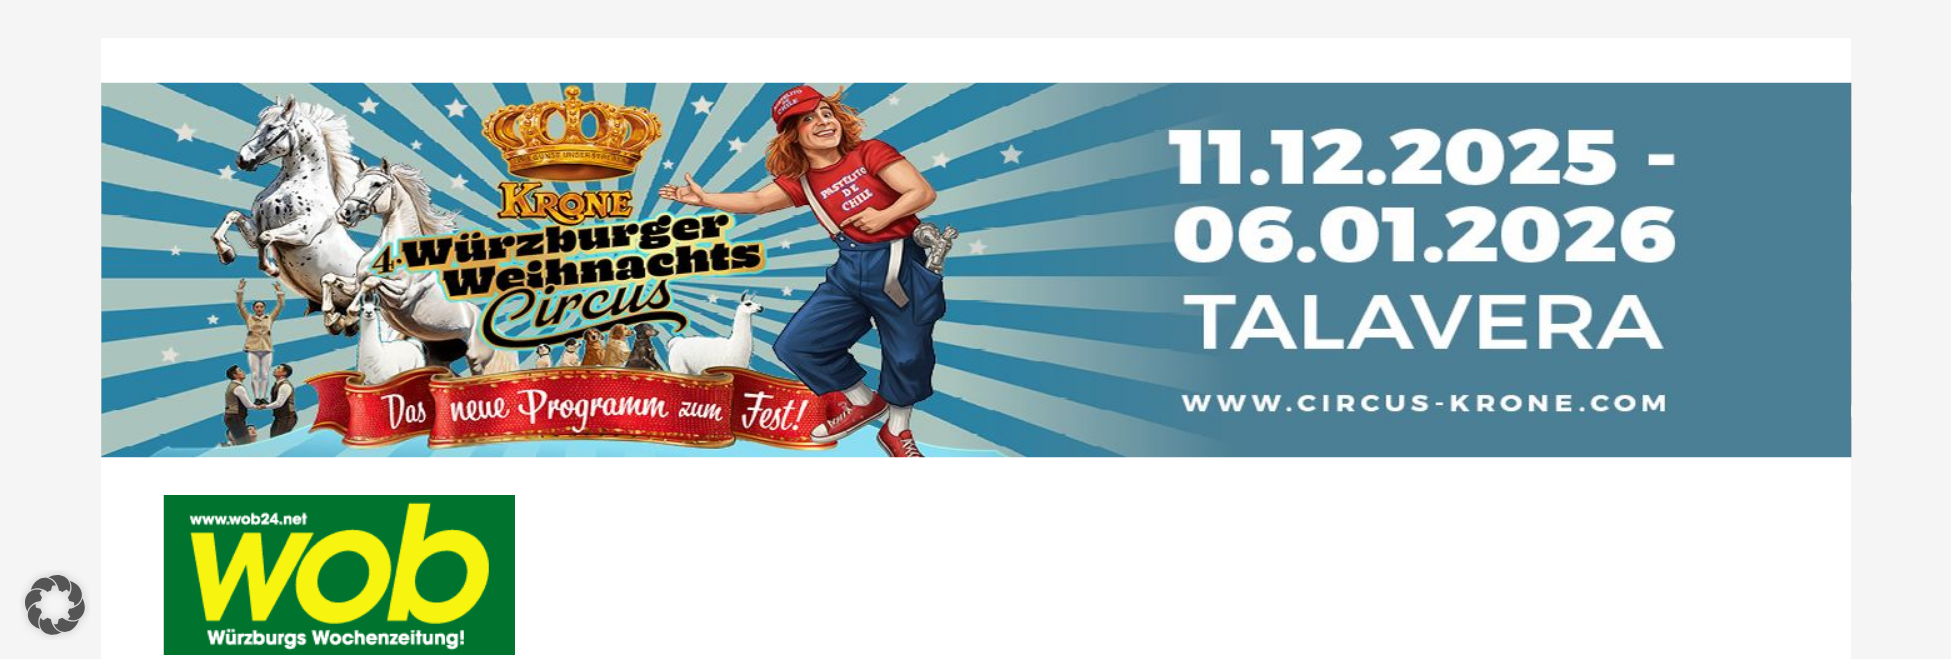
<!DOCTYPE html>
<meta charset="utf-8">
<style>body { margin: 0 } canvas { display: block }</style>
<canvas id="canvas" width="1951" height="659"></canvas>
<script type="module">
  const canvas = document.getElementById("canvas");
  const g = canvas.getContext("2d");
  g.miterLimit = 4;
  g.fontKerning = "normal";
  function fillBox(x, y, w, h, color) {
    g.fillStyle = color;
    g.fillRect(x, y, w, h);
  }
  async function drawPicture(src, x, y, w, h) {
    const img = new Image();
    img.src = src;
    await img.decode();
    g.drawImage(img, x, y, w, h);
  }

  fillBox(0, 0, 1951, 659, "#F5F5F5");
  await drawPicture("pic1.png", 20, 570, 70, 70);
  fillBox(101, 38, 1750, 621, "#FFFFFF");
  await drawPicture("pic2.png", 101, 82, 1, 376);
  await drawPicture("pic3.png", 101, 82, 1751, 376);
  await drawPicture("pic4.png", 1851, 82, 1, 376);
  await drawPicture("pic5.png", 163, 495, 352, 160);
</script>
